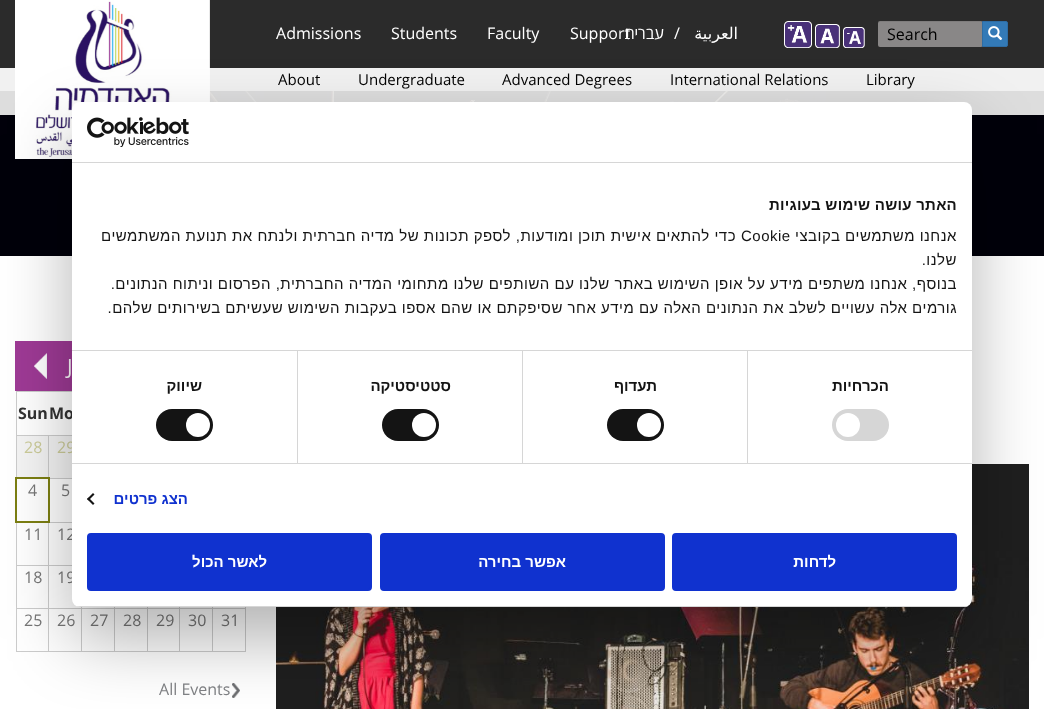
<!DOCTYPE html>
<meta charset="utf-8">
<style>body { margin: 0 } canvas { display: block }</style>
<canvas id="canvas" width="1044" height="709"></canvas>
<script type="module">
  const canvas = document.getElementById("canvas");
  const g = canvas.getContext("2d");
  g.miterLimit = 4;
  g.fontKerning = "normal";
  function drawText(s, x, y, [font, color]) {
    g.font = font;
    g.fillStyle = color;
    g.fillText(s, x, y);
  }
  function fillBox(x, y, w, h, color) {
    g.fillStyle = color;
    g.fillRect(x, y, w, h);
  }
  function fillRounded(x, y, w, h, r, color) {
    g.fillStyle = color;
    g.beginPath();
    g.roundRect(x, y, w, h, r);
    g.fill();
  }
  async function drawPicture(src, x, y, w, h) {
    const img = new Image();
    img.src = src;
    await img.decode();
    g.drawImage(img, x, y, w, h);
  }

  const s1 = ["16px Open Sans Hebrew", "#000000"];
  const s2 = ["16px DejaVu Sans", "#FFFFFF"];
  const s3 = ["16px Open Sans Hebrew", "#FFFFFF"];
  const s4 = ["15px Open Sans Hebrew", "#000000"];
  const s5 = ["21px Open Sans Hebrew", "#FFFFFF"];
  const s6 = ["bold 16px Open Sans Hebrew", "#333333"];
  const s7 = ["16px Open Sans Hebrew", "#CCCC99"];
  const s8 = ["16px Open Sans Hebrew", "#777777"];
  const s9 = ["16px Open Sans Hebrew", "#808285"];
  const s10 = ["bold 15px Liberation Sans", "#141414"];
  const s11 = ["15px Liberation Sans", "#141414"];
  const s12 = ["bold 15px Liberation Sans", "#1032CF"];
  const s13 = ["bold 15px Liberation Sans", "#FFFFFF"];

  fillBox(0, 0, 1044, 709, "#FFFFFF");
  fillBox(0, 0, 1044, 68, "#2B2B2B");
  fillRounded(878, 21, 105, 26, 2, "#898787");
  g.fillStyle = "rgba(0, 0, 0, 0.07)";
  g.beginPath();
  g.moveTo(880, 22);
  g.lineTo(981, 22);
  g.bezierCurveTo(982, 22, 983, 23, 983, 24);
  g.bezierCurveTo(983, 23, 983, 21, 981, 21);
  g.lineTo(880, 21);
  g.bezierCurveTo(878, 21, 878, 23, 878, 24);
  g.bezierCurveTo(878, 23, 879, 22, 880, 22);
  g.closePath();
  g.fill();
  g.fillStyle = "#337AB7";
  g.beginPath();
  g.roundRect(982.5, 21.5, 25, 25, [0, 1.5, 1.5, 0]);
  g.fill();
  g.strokeStyle = "#2E6DA4";
  g.stroke();
  await drawPicture("pic1.png", 988, 26, 15, 14);
  drawText("Search", 887, 40, s1);
  await drawPicture("pic2.png", 843, 27, 22, 21);
  await drawPicture("pic3.png", 815, 24, 25, 24);
  await drawPicture("pic4.png", 784, 21, 28, 27);
  g.direction = "rtl";
  drawText("العربية", 738, 39, s2);
  g.direction = "ltr";
  drawText("/", 674, 39, s3);
  drawText("Support", 570, 39, s3);
  g.direction = "rtl";
  drawText("עברית", 664, 39, s3);
  g.direction = "ltr";
  drawText("Faculty", 487, 39, s3);
  drawText("Students", 391, 39, s3);
  drawText("Admissions", 276, 39, s3);
  await drawPicture("pic6.png", 0, 91, 1044, 165);
  fillBox(0, 68, 1044, 47, "rgba(240, 240, 240, 0.92)");
  await drawPicture("pic5.png", 15, 0, 195, 159);
  drawText("Library", 866, 85, s4);
  drawText("International Relations", 670, 85, s4);
  drawText("Advanced Degrees", 502, 85, s4);
  drawText("Undergraduate", 358, 85, s4);
  drawText("About", 278, 85, s4);
  await drawPicture("pic7.png", 276, 464, 753, 245);
  fillBox(15, 341, 57, 50, "#9E3A95");
  drawText("J", 67, 374, s5);
  await drawPicture("pic8.png", 34, 353, 13, 26);
  fillBox(16, 391, 56, 1, "#CCCCCC");
  fillBox(16, 435, 56, 1, "#CCCCCC");
  fillBox(16, 391, 1, 45, "#CCCCCC");
  drawText("Mo", 49, 419, s6);
  drawText("Sun", 18, 419, s6);
  fillBox(48, 478, 24, 1, "#CCCCCC");
  fillBox(48, 435, 1, 44, "#CCCCCC");
  fillBox(16, 435, 1, 44, "#CCCCCC");
  fillBox(49, 436, 23, 42, "#F4F4F4");
  drawText("29", 57, 453, s7);
  fillBox(17, 436, 31, 41, "#F4F4F4");
  drawText("28", 24, 453, s7);
  drawText("5", 61, 496, s8);
  fillBox(15, 477, 35, 2, "#7C7F12");
  fillBox(48, 522, 24, 1, "#CCCCCC");
  fillBox(48, 565, 24, 1, "#CCCCCC");
  fillBox(212, 608, 34, 1, "#CCCCCC");
  fillBox(245, 630, 1, 22, "#CCCCCC");
  fillBox(212, 651, 34, 1, "#CCCCCC");
  fillBox(212, 630, 1, 22, "#CCCCCC");
  fillBox(212, 608, 1, 23, "#CCCCCC");
  fillBox(179, 608, 34, 1, "#CCCCCC");
  fillBox(179, 651, 34, 1, "#CCCCCC");
  fillBox(179, 630, 1, 22, "#CCCCCC");
  fillBox(179, 608, 1, 23, "#CCCCCC");
  fillBox(147, 608, 33, 1, "#CCCCCC");
  fillBox(147, 651, 33, 1, "#CCCCCC");
  fillBox(147, 630, 1, 22, "#CCCCCC");
  fillBox(147, 608, 1, 23, "#CCCCCC");
  fillBox(114, 608, 34, 1, "#CCCCCC");
  fillBox(114, 651, 34, 1, "#CCCCCC");
  fillBox(114, 630, 1, 22, "#CCCCCC");
  fillBox(114, 608, 1, 23, "#CCCCCC");
  fillBox(81, 608, 34, 1, "#CCCCCC");
  fillBox(81, 651, 34, 1, "#CCCCCC");
  fillBox(81, 630, 1, 22, "#CCCCCC");
  fillBox(81, 608, 1, 23, "#CCCCCC");
  fillBox(48, 608, 34, 1, "#CCCCCC");
  fillBox(48, 651, 34, 1, "#CCCCCC");
  fillBox(48, 630, 1, 22, "#CCCCCC");
  fillBox(48, 608, 1, 23, "#CCCCCC");
  fillBox(16, 608, 33, 1, "#CCCCCC");
  fillBox(48, 587, 1, 22, "#CCCCCC");
  fillBox(48, 565, 1, 23, "#CCCCCC");
  fillBox(16, 565, 33, 1, "#CCCCCC");
  fillBox(48, 544, 1, 22, "#CCCCCC");
  fillBox(48, 522, 1, 23, "#CCCCCC");
  fillBox(48, 499, 2, 24, "#7C7F12");
  fillBox(48, 477, 2, 24, "#7C7F12");
  fillBox(16, 651, 33, 1, "#CCCCCC");
  fillBox(16, 630, 1, 22, "#CCCCCC");
  fillBox(16, 587, 1, 44, "#CCCCCC");
  fillBox(16, 522, 1, 66, "#CCCCCC");
  fillBox(15, 521, 35, 2, "#7C7F12");
  fillBox(15, 499, 2, 24, "#7C7F12");
  fillBox(15, 477, 2, 24, "#7C7F12");
  drawText("4", 28, 496, s8);
  drawText("12", 57, 540, s8);
  drawText("11", 24, 540, s8);
  drawText("19", 57, 583, s8);
  drawText("18", 24, 583, s8);
  fillBox(212, 607, 1, 2, "#CCCCCC");
  fillBox(179, 607, 1, 2, "#CCCCCC");
  fillBox(147, 607, 1, 2, "#CCCCCC");
  fillBox(114, 607, 1, 2, "#CCCCCC");
  fillBox(81, 607, 1, 2, "#CCCCCC");
  fillBox(245, 607, 1, 24, "#CCCCCC");
  drawText("31", 221, 626, s8);
  drawText("30", 188, 626, s8);
  drawText("29", 156, 626, s8);
  drawText("28", 123, 626, s8);
  drawText("27", 90, 626, s8);
  drawText("26", 57, 626, s8);
  drawText("25", 24, 626, s8);
  await drawPicture("pic9.png", 232, 683, 8, 15);
  drawText("All Events", 159, 695, s9);
  g.fillStyle = "rgba(0, 0, 0, 0.3)";
  g.filter = "blur(34px)";
  g.beginPath();
  g.roundRect(72, 134, 900, 505, 8);
  g.fill();
  g.filter = "none";
  fillRounded(72, 102, 900, 505, 8, "#FFFFFF");
  fillBox(72, 162, 900, 1, "#D6D6D6");
  await drawPicture("pic10.png", 87, 117, 102, 30);
  fillBox(72, 350, 900, 1, "#D6D6D6");
  g.letterSpacing = "0.25px";
  g.direction = "rtl";
  drawText("האתר עושה שימוש בעוגיות", 957, 210, s10);
  g.letterSpacing = "0.5px";
  drawText("אנחנו משתמשים בקובצי", 957, 241, s11);
  g.direction = "ltr";
  drawText("Cookie", 741, 241, s11);
  g.direction = "rtl";
  drawText("כדי להתאים אישית תוכן ומודעות, לספק תכונות של מדיה חברתית ולנתח את תנועת המשתמשים", 736, 241, s11);
  drawText("שלנו.", 957, 265, s11);
  drawText("בנוסף, אנחנו משתפים מידע על אופן השימוש באתר שלנו עם השותפים שלנו מתחומי המדיה החברתית, הפרסום וניתוח הנתונים.", 957, 289, s11);
  drawText("גורמים אלה עשויים לשלב את הנתונים האלה עם מידע אחר שסיפקתם או שהם אספו בעקבות השימוש שעשיתם בשירותים שלהם.", 957, 313, s11);
  fillBox(72, 463, 900, 1, "#D6D6D6");
  fillBox(747, 351, 1, 112, "#D6D6D6");
  g.letterSpacing = "0px";
  drawText("הכרחיות", 889, 391, s10);
  fillRounded(832, 409, 57, 32, 16, "#D6D6D6");
  g.fillStyle = "#FFFFFF";
  g.beginPath();
  g.arc(848, 425, 12, 0, Math.PI * 2);
  g.fill();
  fillBox(522, 351, 1, 112, "#D6D6D6");
  drawText("תעדוף", 657, 391, s10);
  fillRounded(607, 409, 57, 32, 16, "#141414");
  g.fillStyle = "#FFFFFF";
  g.beginPath();
  g.arc(649, 425, 12, 0, Math.PI * 2);
  g.fill();
  fillBox(297, 351, 1, 112, "#D6D6D6");
  drawText("סטטיסטיקה", 451, 391, s10);
  fillRounded(382, 409, 57, 32, 16, "#141414");
  g.fillStyle = "#FFFFFF";
  g.beginPath();
  g.arc(424, 425, 12, 0, Math.PI * 2);
  g.fill();
  drawText("שיווק", 202, 391, s10);
  fillRounded(156, 409, 57, 32, 16, "#141414");
  g.fillStyle = "#FFFFFF";
  g.beginPath();
  g.arc(198, 425, 12, 0, Math.PI * 2);
  g.fill();
  drawText("הצג פרטים", 188, 504, s12);
  g.fillStyle = "#141414";
  g.beginPath();
  g.moveTo(93, 505);
  g.lineTo(87, 499);
  g.lineTo(88.5, 497.5);
  g.lineTo(94.5, 503.5);
  g.closePath();
  g.fill();
  g.beginPath();
  g.moveTo(88.5, 500.5);
  g.lineTo(87, 499);
  g.lineTo(93, 493);
  g.lineTo(94.5, 494.5);
  g.closePath();
  g.fill();
  g.save();
  g.beginPath();
  g.roundRect(72, 102, 900, 505, 8);
  g.clip();
  fillBox(72, 606, 900, 1, "#D6D6D6");
  g.restore();
  g.fillStyle = "#1032CF";
  g.beginPath();
  g.roundRect(673, 534, 283, 56, 3);
  g.fill();
  g.strokeStyle = "#1032CF";
  g.lineWidth = 2;
  g.stroke();
  drawText("לדחות", 836, 567, s13);
  g.fillStyle = "#1032CF";
  g.beginPath();
  g.roundRect(381, 534, 283, 56, 3);
  g.fill();
  g.stroke();
  drawText("אפשר בחירה", 566, 567, s13);
  g.fillStyle = "#1032CF";
  g.beginPath();
  g.roundRect(88, 534, 283, 56, 3);
  g.fill();
  g.stroke();
  drawText("לאשר הכול", 267, 567, s13);
</script>
